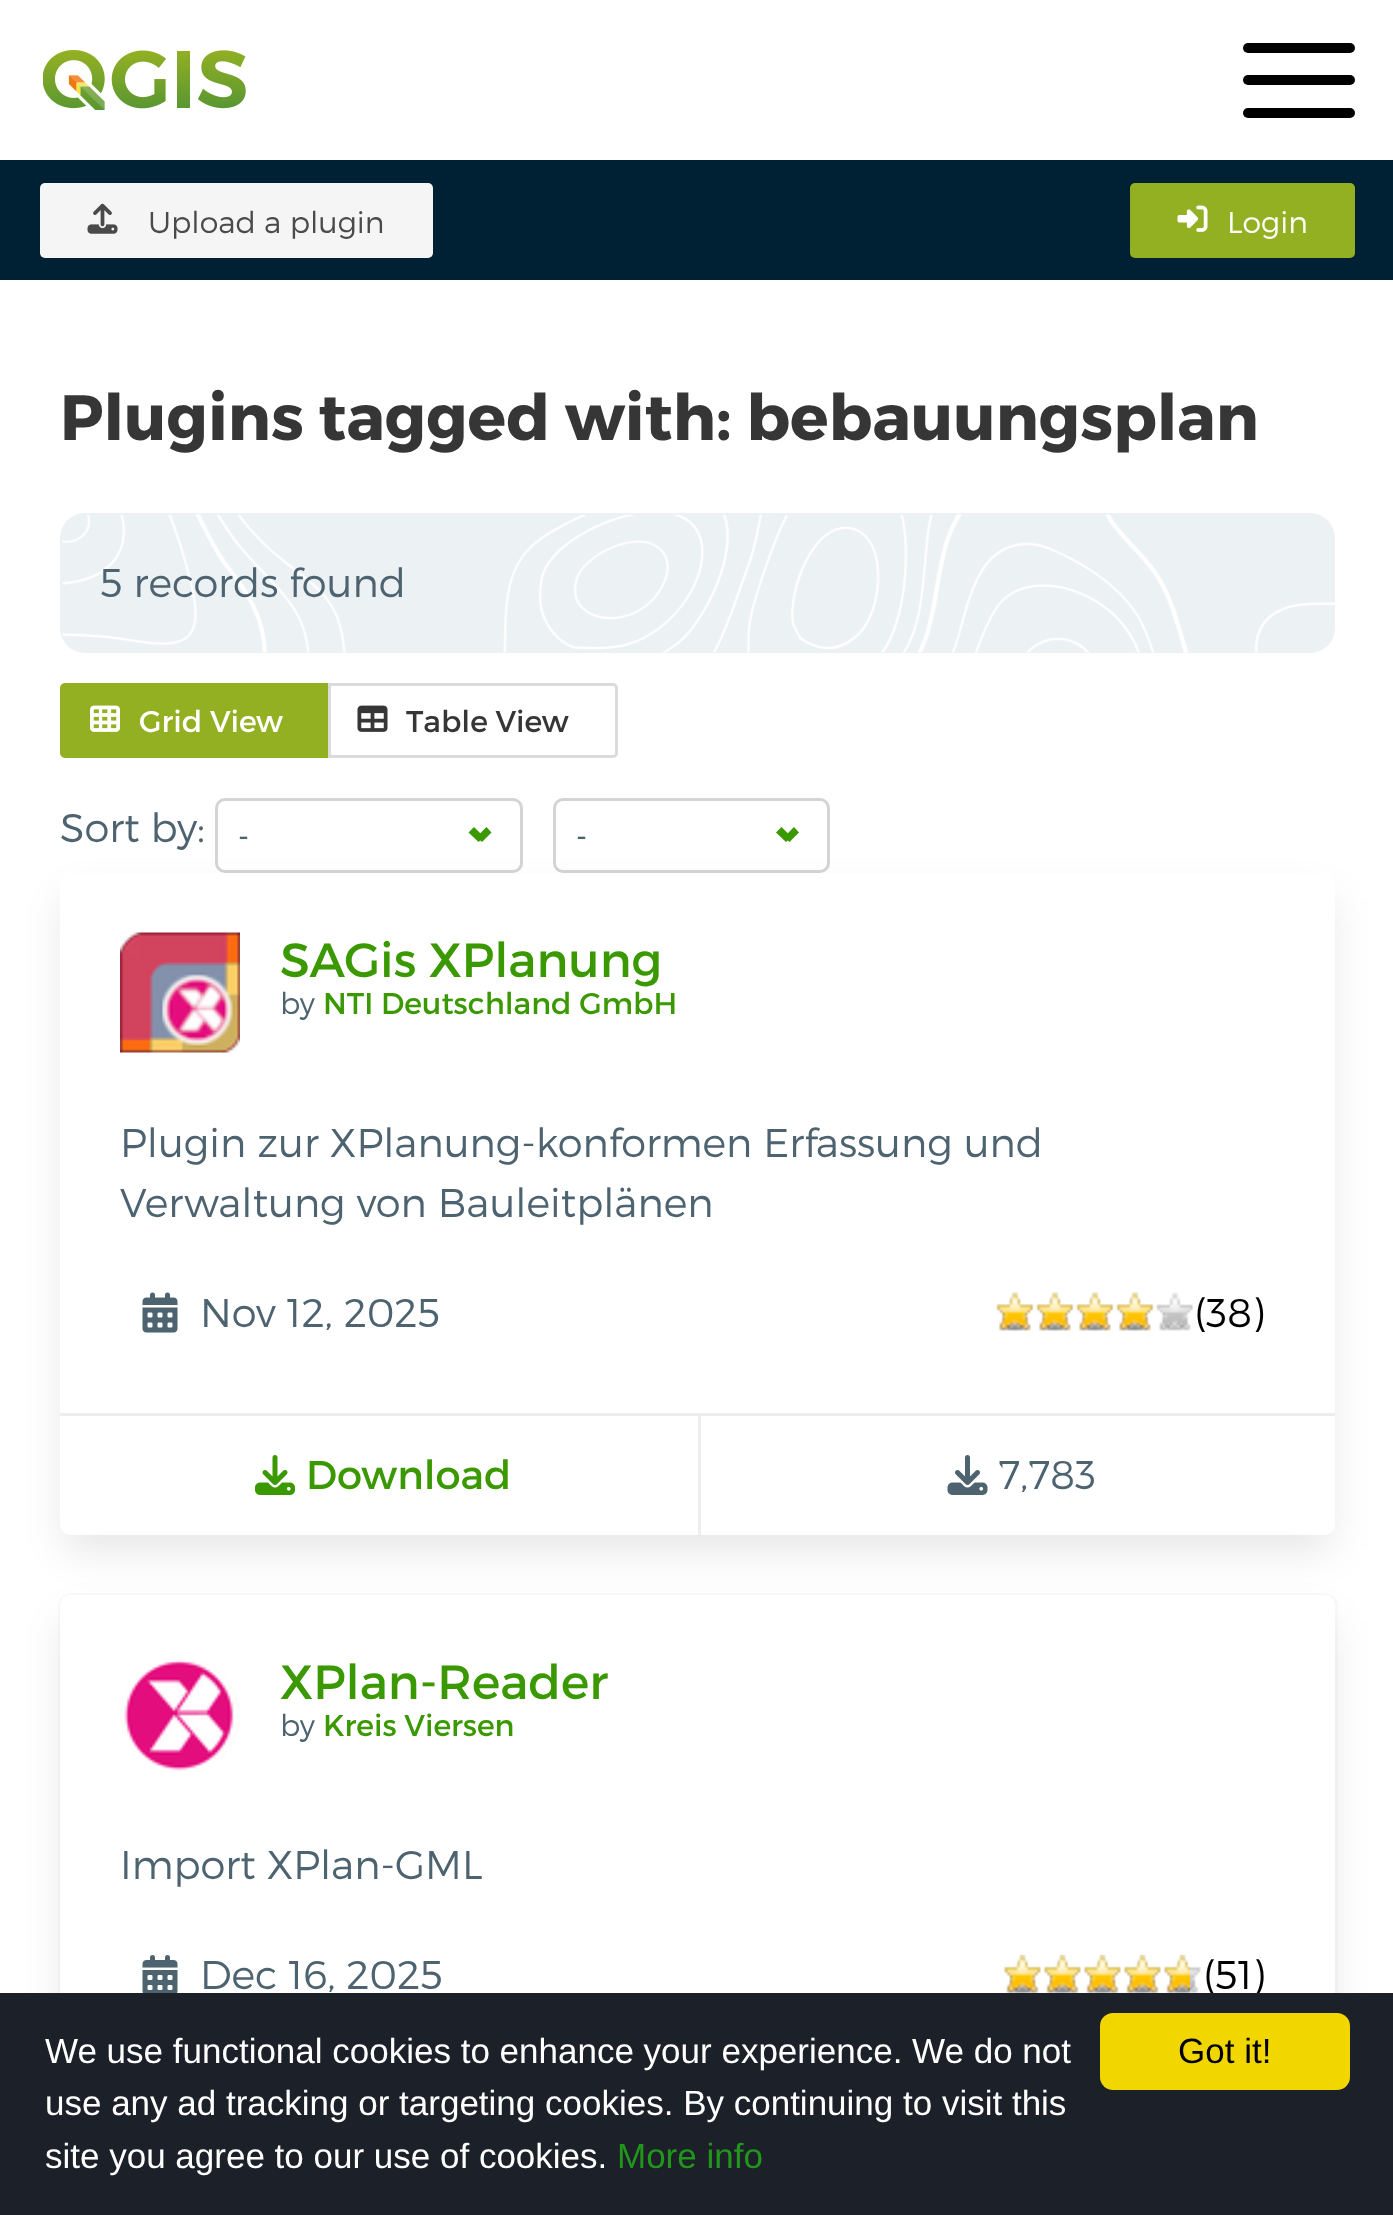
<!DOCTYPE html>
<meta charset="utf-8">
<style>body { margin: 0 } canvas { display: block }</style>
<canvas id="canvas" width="1393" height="2215"></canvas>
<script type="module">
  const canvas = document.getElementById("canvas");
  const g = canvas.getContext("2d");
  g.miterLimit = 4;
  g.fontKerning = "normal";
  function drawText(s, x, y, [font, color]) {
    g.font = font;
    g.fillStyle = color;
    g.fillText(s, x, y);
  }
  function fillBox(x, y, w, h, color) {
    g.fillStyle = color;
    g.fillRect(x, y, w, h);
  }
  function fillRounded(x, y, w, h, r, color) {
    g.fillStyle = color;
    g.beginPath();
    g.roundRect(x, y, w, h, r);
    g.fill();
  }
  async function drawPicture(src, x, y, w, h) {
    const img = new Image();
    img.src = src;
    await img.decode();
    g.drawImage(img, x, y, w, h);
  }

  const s1 = ["300 30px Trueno", "#4A4A4A"];
  const s2 = ["300 30px Trueno", "#FFFFFF"];
  const s3 = ["bold 64px Trueno", "#363636"];
  const s4 = ["300 40px Trueno", "#4D6370"];
  const s5 = ["30px Trueno", "#FFFFFF"];
  const s6 = ["30px Trueno", "#363636"];
  const s7 = ["30px Trueno", "#4D6370"];
  const s8 = ["48px Trueno", "#3A9800"];
  const s9 = ["300 30px Trueno", "#4D6370"];
  const s10 = ["30px Trueno", "#3A9800"];
  const s11 = ["300 40px Trueno", "#000000"];
  const s12 = ["40px Trueno", "#3A9800"];
  const s13 = ["35px Liberation Sans", "#FFFFFF"];
  const s14 = ["35px Liberation Sans", "#22961C"];
  const s15 = ["35px Liberation Sans", "#000000"];

  fillBox(0, 0, 1393, 2215, "#FFFFFF");
  await drawPicture("pic1.png", 43, 50, 203, 60);
  fillRounded(1243, 43, 112, 10, 5, "#000000");
  fillRounded(1243, 75, 112, 10, 5, "#000000");
  fillRounded(1243, 108, 112, 10, 5, "#000000");
  fillBox(0, 160, 1393, 120, "#002033");
  fillRounded(40, 183, 393, 75, 5, "#F5F5F5");
  await drawPicture("pic2.png", 87, 203, 31, 31);
  drawText("Upload a plugin", 148, 233, s1);
  fillRounded(1130, 183, 225, 75, 5, "#93B023");
  await drawPicture("pic3.png", 1177, 205, 31, 27);
  drawText("Login", 1227, 233, s2);
  drawText("Plugins tagged with: bebauungsplan", 60, 440, s3);
  fillRounded(60, 513, 1275, 140, 25, "#ECF1F4");
  await drawPicture("pic4.png", 62, 514, 1273, 139);
  drawText("5 records found", 100, 597, s4);
  g.fillStyle = "#93B023";
  g.beginPath();
  g.roundRect(60, 683, 270, 75, [5, 0, 0, 5]);
  g.fill();
  await drawPicture("pic5.png", 90, 705, 30, 27);
  drawText("Grid View", 139, 732, s5);
  g.beginPath();
  g.roundRect(329.5, 684.5, 287, 72, [0, 3.5, 3.5, 0]);
  g.fill();
  g.strokeStyle = "#DBDBDB";
  g.lineWidth = 3;
  g.stroke();
  await drawPicture("pic6.png", 357, 705, 31, 27);
  drawText("Table View", 406, 732, s6);
  drawText("Sort by:", 60, 842, s4);
  g.beginPath();
  g.roundRect(216.5, 799.5, 305, 72, 8.5);
  g.strokeStyle = "#D4D4D4";
  g.stroke();
  drawText("-", 238, 847, s7);
  g.beginPath();
  g.roundRect(554.5, 799.5, 274, 72, 8.5);
  g.stroke();
  g.fillStyle = "rgba(0, 0, 0, 0.1)";
  g.filter = "blur(20px)";
  g.beginPath();
  g.roundRect(65, 898, 1265, 652, 5);
  g.fill();
  g.filter = "none";
  g.fillStyle = "#3A9800";
  g.beginPath();
  g.moveTo(476.5, 837);
  g.lineTo(486.5, 827);
  g.lineTo(491.5, 832.5);
  g.lineTo(482, 842);
  g.closePath();
  g.fill();
  g.beginPath();
  g.moveTo(468.5, 832.5);
  g.lineTo(474, 827);
  g.lineTo(484, 837);
  g.lineTo(478.5, 842);
  g.closePath();
  g.fill();
  drawText("-", 576, 847, s7);
  g.fillStyle = "#3A9800";
  g.beginPath();
  g.moveTo(784, 837);
  g.lineTo(794, 827);
  g.lineTo(799, 832.5);
  g.lineTo(789.5, 842);
  g.closePath();
  g.fill();
  g.beginPath();
  g.moveTo(776, 832.5);
  g.lineTo(781.5, 827);
  g.lineTo(791.5, 837);
  g.lineTo(786, 842);
  g.closePath();
  g.fill();
  fillRounded(60, 873, 1275, 662, 10, "#FFFFFF");
  await drawPicture("pic7.png", 120, 932, 120, 121);
  drawText("SAGis XPlanung", 280, 977, s8);
  drawText("by", 280, 1014, s9);
  drawText("NTI Deutschland GmbH", 323, 1014, s10);
  drawText("Plugin zur XPlanung-konformen Erfassung und", 120, 1157, s4);
  drawText("Verwaltung von Bauleitplänen", 120, 1217, s4);
  await drawPicture("pic8.png", 142, 1292, 36, 41);
  drawText("Nov 12, 2025", 200, 1327, s4);
  await drawPicture("pic9.png", 996, 1292, 198, 39);
  await drawPicture("pic10.png", 996, 1292, 162, 39);
  drawText("(38)", 1194, 1327, s11);
  fillBox(60, 1413, 1275, 3, "#EDEDED");
  fillBox(698, 1415, 3, 120, "#EDEDED");
  await drawPicture("pic11.png", 255, 1455, 40, 40);
  drawText("Download", 306, 1489, s12);
  await drawPicture("pic12.png", 947, 1455, 41, 40);
  drawText("7,783", 998, 1489, s4);
  g.beginPath();
  g.roundRect(59.5, 1594.5, 1277, 604, 11.5);
  g.strokeStyle = "#FAFAFA";
  g.stroke();
  g.fillStyle = "rgba(0, 0, 0, 0.1)";
  g.filter = "blur(20px)";
  g.beginPath();
  g.roundRect(65, 1620, 1265, 593, 5);
  g.fill();
  g.filter = "none";
  fillRounded(60, 1595, 1275, 603, 10, "#FFFFFF");
  await drawPicture("pic13.png", 120, 1658, 120, 114);
  drawText("XPlan-Reader", 280, 1699, s8);
  drawText("by", 280, 1736, s9);
  drawText("Kreis Viersen", 323, 1736, s10);
  drawText("Import XPlan-GML", 120, 1879, s4);
  await drawPicture("pic14.png", 142, 1955, 36, 38);
  drawText("Dec 16, 2025", 200, 1989, s4);
  await drawPicture("pic15.png", 1004, 1955, 197, 38);
  await drawPicture("pic16.png", 1004, 1955, 186, 38);
  drawText("(51)", 1203, 1989, s11);
  fillBox(0, 1993, 1393, 222, "#1C2028");
  drawText("We use functional cookies to enhance your experience. We do not", 45, 2063, s13);
  drawText("use any ad tracking or targeting cookies. By continuing to visit this", 45, 2115, s13);
  drawText("site you agree to our use of cookies.", 45, 2168, s13);
  drawText("More info", 617, 2168, s14);
  fillRounded(1100, 2013, 250, 77, 13, "#F1D600");
  drawText("Got it!", 1178, 2063, s15);
</script>
